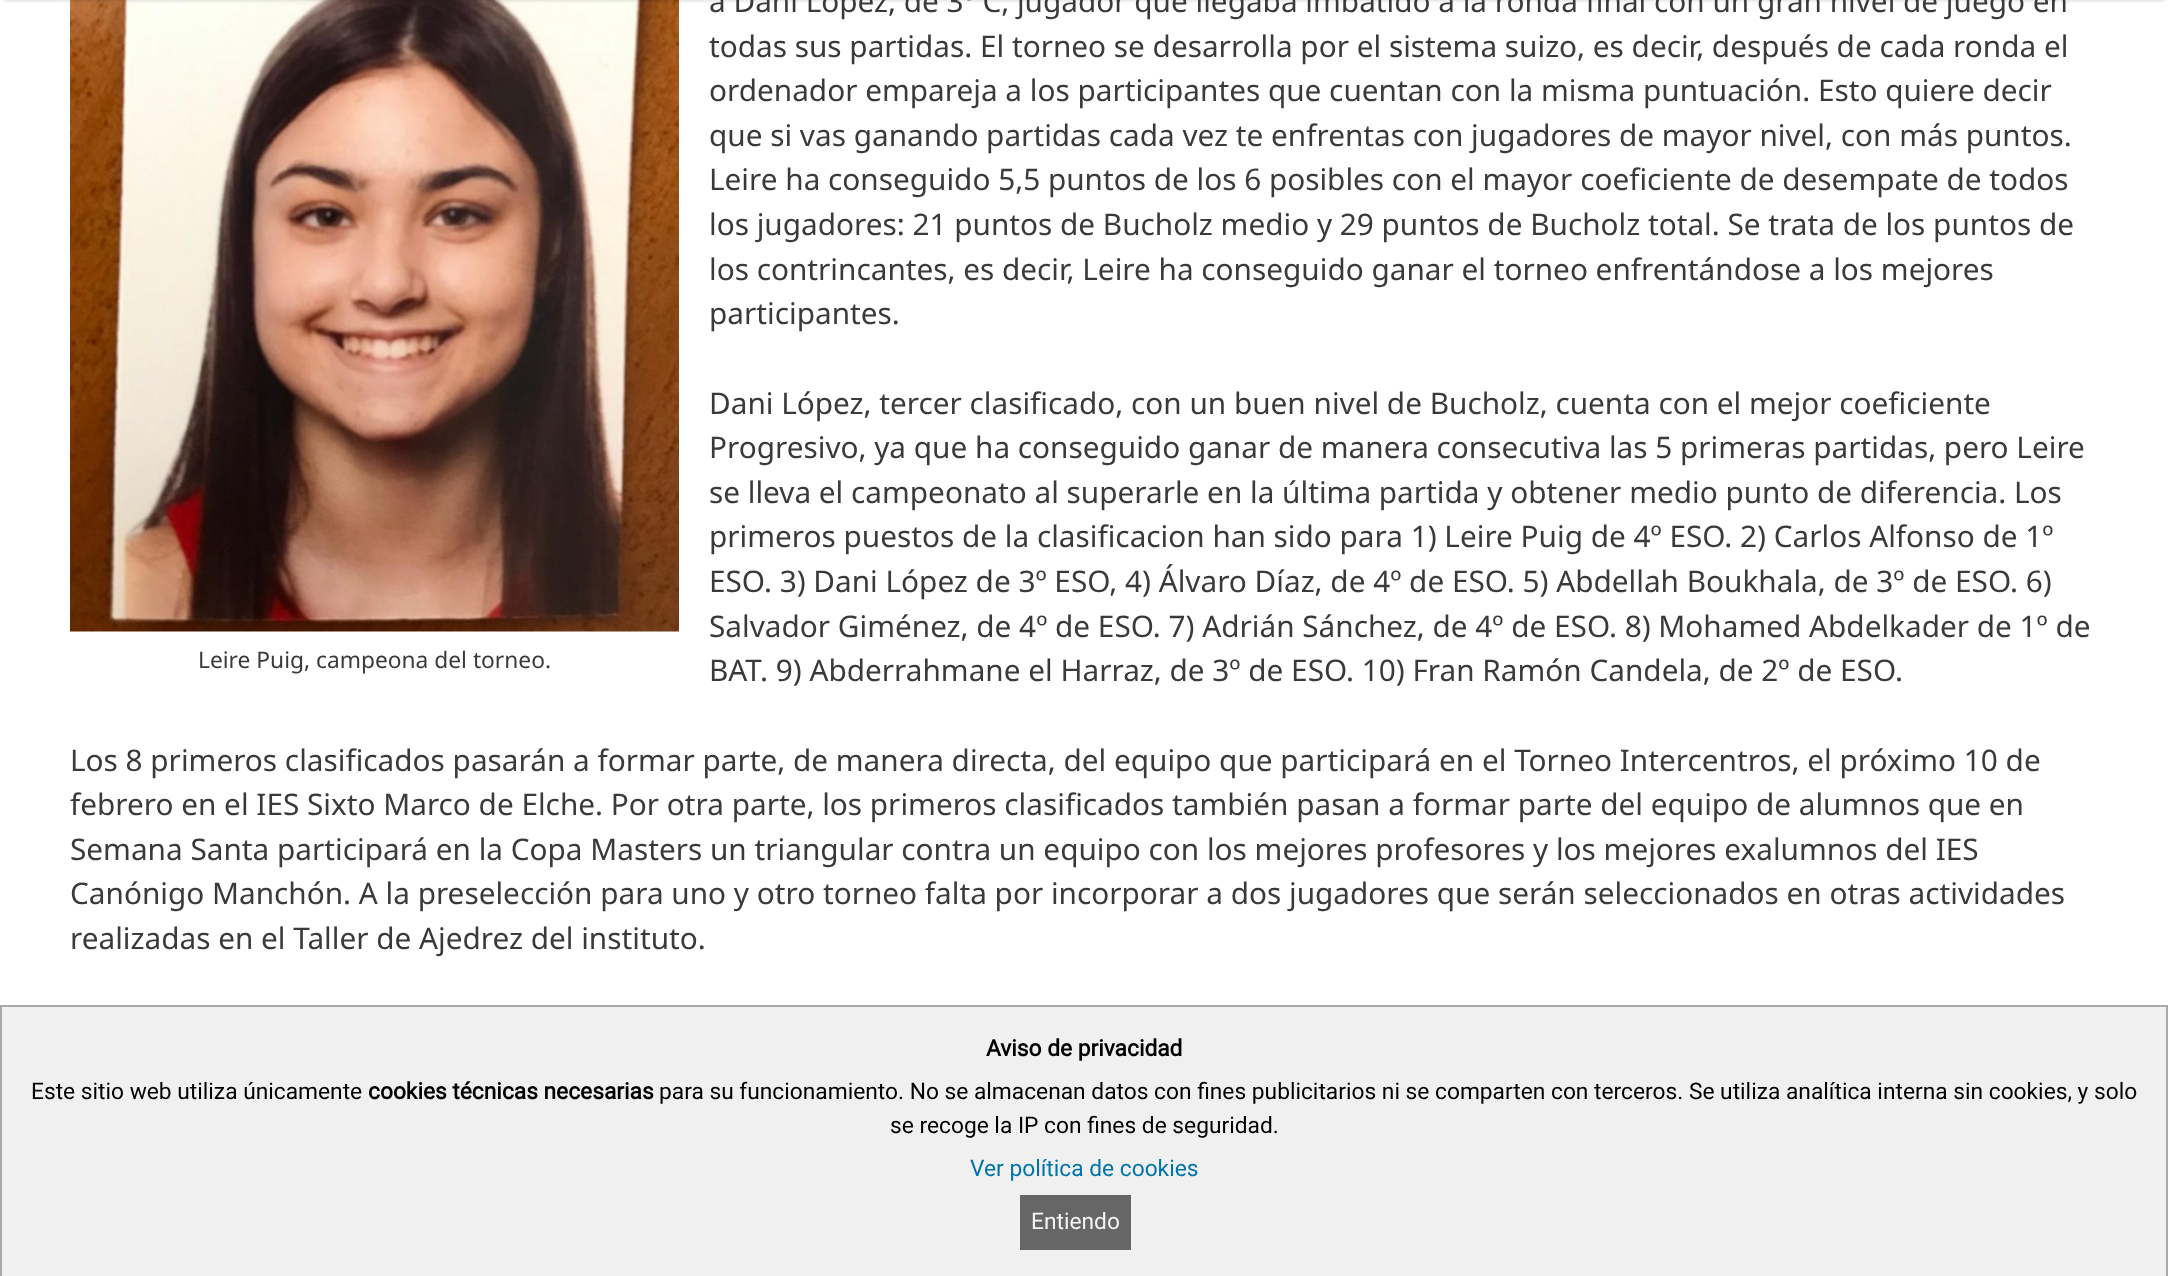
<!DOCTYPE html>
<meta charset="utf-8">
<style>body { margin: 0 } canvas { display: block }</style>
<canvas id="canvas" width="2168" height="1276"></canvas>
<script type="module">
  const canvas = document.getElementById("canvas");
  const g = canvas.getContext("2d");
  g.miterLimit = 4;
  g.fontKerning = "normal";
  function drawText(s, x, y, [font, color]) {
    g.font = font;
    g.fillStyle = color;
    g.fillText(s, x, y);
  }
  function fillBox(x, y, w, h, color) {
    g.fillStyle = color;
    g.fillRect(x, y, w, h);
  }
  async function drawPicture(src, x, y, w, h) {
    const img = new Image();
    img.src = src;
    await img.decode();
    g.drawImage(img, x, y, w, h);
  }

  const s1 = ["29.75px Noto Sans", "#3A3A3A"];
  const s2 = ["22.75px Noto Sans", "#3A3A3A"];
  const s3 = ["bold 22.75px Roboto", "#000000"];
  const s4 = ["22.75px Roboto", "#000000"];
  const s5 = ["22.75px Roboto", "#0073AA"];
  const s6 = ["22.75px Roboto", "#F5F5F5"];

  fillBox(0, 0, 2168, 1276, "#FFFFFF");
  await drawPicture("pic1.png", 70, 0, 609, 632);
  g.fillStyle = "rgba(0, 0, 0, 0.2)";
  g.filter = "blur(2px)";
  g.beginPath();
  g.rect(4, -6, 2161, 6);
  g.fill();
  g.filter = "none";
  drawText("a Dani López, de 3º C, jugador que llegaba imbatido a la ronda final con un gran nivel de juego en", 709, 12, s1);
  drawText("todas sus partidas. El torneo se desarrolla por el sistema suizo, es decir, después de cada ronda el", 709, 57, s1);
  drawText("ordenador empareja a los participantes que cuentan con la misma puntuación. Esto quiere decir", 709, 101, s1);
  drawText("que si vas ganando partidas cada vez te enfrentas con jugadores de mayor nivel, con más puntos.", 709, 146, s1);
  drawText("Leire ha conseguido 5,5 puntos de los 6 posibles con el mayor coeficiente de desempate de todos", 709, 190, s1);
  drawText("los jugadores: 21 puntos de Bucholz medio y 29 puntos de Bucholz total. Se trata de los puntos de", 709, 235, s1);
  drawText("los contrincantes, es decir, Leire ha conseguido ganar el torneo enfrentándose a los mejores", 709, 280, s1);
  drawText("participantes.", 709, 324, s1);
  drawText("Leire Puig, campeona del torneo.", 198, 668, s2);
  drawText("Dani López, tercer clasificado, con un buen nivel de Bucholz, cuenta con el mejor coeficiente", 709, 414, s1);
  drawText("Progresivo, ya que ha conseguido ganar de manera consecutiva las 5 primeras partidas, pero Leire", 709, 458, s1);
  drawText("se lleva el campeonato al superarle en la última partida y obtener medio punto de diferencia. Los", 709, 503, s1);
  drawText("primeros puestos de la clasificacion han sido para 1) Leire Puig de 4º ESO. 2) Carlos Alfonso de 1º", 709, 547, s1);
  drawText("ESO. 3) Dani López de 3º ESO, 4) Álvaro Díaz, de 4º de ESO. 5) Abdellah Boukhala, de 3º de ESO. 6)", 709, 592, s1);
  drawText("Salvador Giménez, de 4º de ESO. 7) Adrián Sánchez, de 4º de ESO. 8) Mohamed Abdelkader de 1º de", 709, 637, s1);
  drawText("BAT. 9) Abderrahmane el Harraz, de 3º de ESO. 10) Fran Ramón Candela, de 2º de ESO.", 709, 681, s1);
  drawText("Los 8 primeros clasificados pasarán a formar parte, de manera directa, del equipo que participará en el Torneo Intercentros, el próximo 10 de", 70, 771, s1);
  drawText("febrero en el IES Sixto Marco de Elche. Por otra parte, los primeros clasificados también pasan a formar parte del equipo de alumnos que en", 70, 815, s1);
  drawText("Semana Santa participará en la Copa Masters un triangular contra un equipo con los mejores profesores y los mejores exalumnos del IES", 70, 860, s1);
  drawText("Canónigo Manchón. A la preselección para uno y otro torneo falta por incorporar a dos jugadores que serán seleccionados en otras actividades", 70, 904, s1);
  drawText("realizadas en el Taller de Ajedrez del instituto.", 70, 949, s1);
  g.fillStyle = "#F0F0F0";
  g.beginPath();
  g.rect(1, 1006, 2166, 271);
  g.fill();
  g.strokeStyle = "#A9A9A9";
  g.lineWidth = 2;
  g.stroke();
  drawText("Aviso de privacidad", 986, 1056, s3);
  drawText("Este sitio web utiliza únicamente", 31, 1099, s4);
  drawText("cookies técnicas necesarias", 368, 1099, s3);
  drawText("para su funcionamiento. No se almacenan datos con fines publicitarios ni se comparten con terceros. Se utiliza analítica interna sin cookies, y solo", 659, 1099, s4);
  drawText("se recoge la IP con fines de seguridad.", 890, 1133, s4);
  drawText("Ver política de cookies", 970, 1176, s5);
  fillBox(1020, 1195, 111, 55, "#666666");
  drawText("Entiendo", 1031, 1229, s6);
</script>
